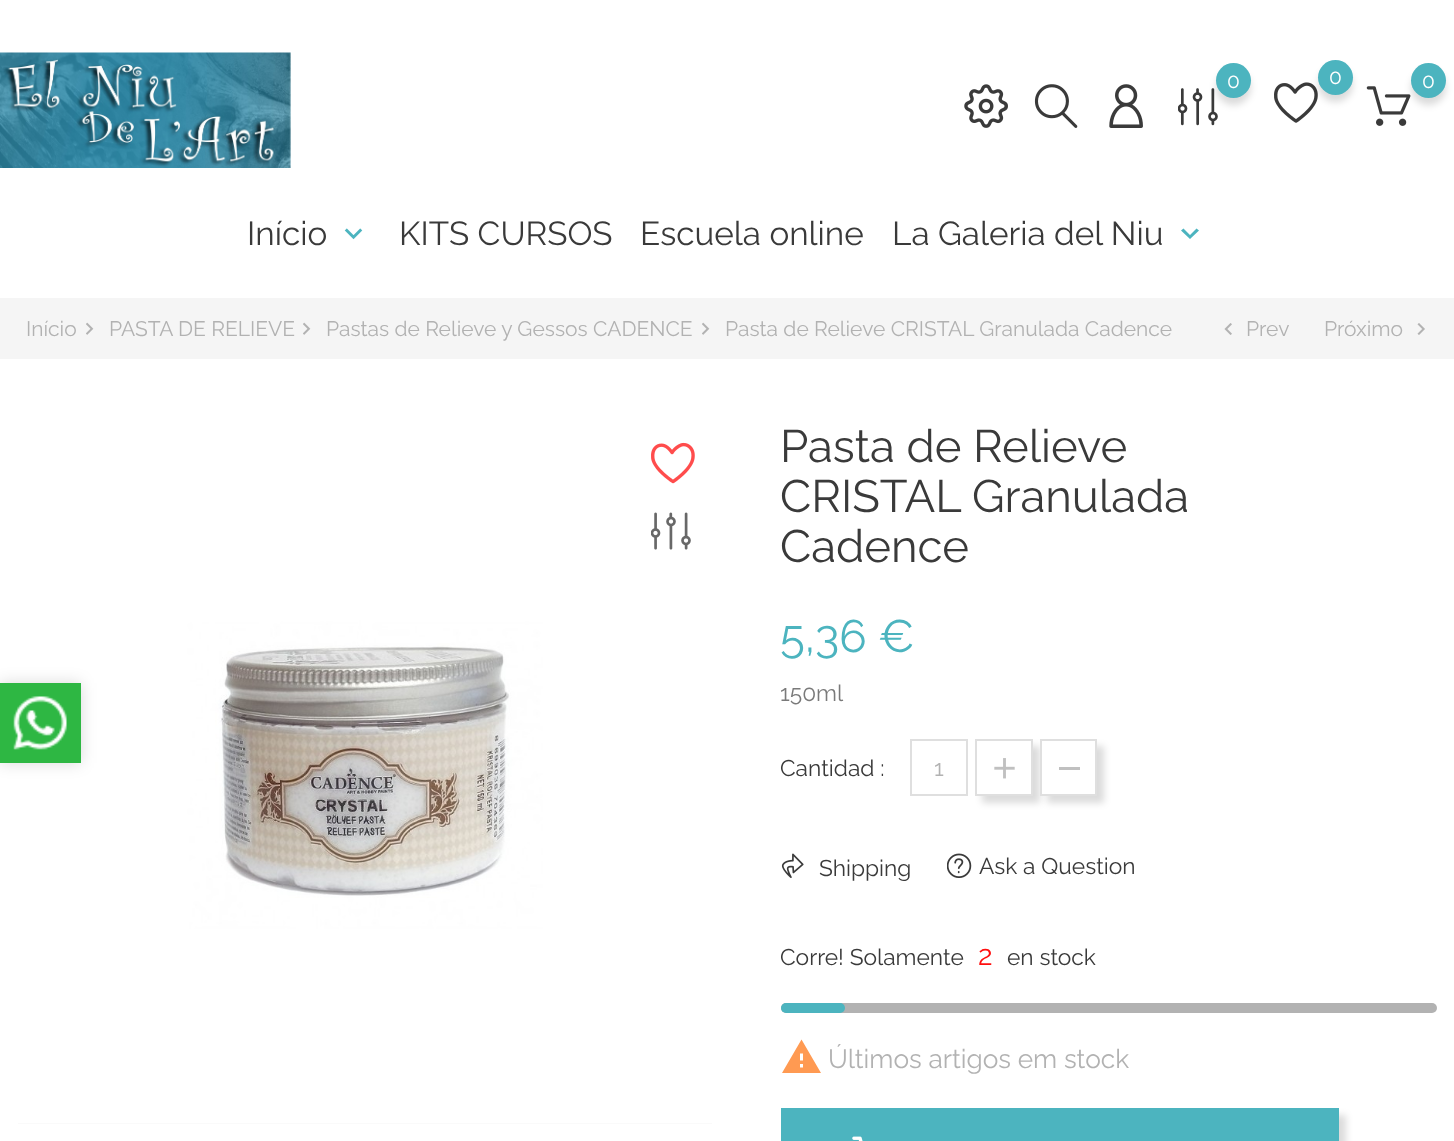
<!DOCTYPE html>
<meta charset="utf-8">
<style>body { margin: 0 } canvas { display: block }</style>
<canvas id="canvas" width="1454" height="1141"></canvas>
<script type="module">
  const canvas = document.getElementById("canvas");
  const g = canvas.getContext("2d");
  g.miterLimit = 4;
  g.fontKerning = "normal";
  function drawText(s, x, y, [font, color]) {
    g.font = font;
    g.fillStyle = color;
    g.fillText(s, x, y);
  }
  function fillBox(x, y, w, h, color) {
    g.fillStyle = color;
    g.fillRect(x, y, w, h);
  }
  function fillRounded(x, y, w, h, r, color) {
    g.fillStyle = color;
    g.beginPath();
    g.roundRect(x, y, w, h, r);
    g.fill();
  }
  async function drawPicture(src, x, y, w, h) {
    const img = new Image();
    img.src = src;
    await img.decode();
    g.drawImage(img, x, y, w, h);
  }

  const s1 = ["21px Raleway", "#FFFFFF"];
  const s2 = ["33.25px Raleway", "#3A3A3A"];
  const s3 = ["21px Raleway", "#B2B2B2"];
  const s4 = ["45.5px Raleway", "#3A3A3A"];
  const s5 = ["45.5px Raleway", "#4CB4BF"];
  const s6 = ["22.75px Raleway", "#7A7A7A"];
  const s7 = ["22.75px Raleway", "#3A3A3A"];
  const s8 = ["22.75px Raleway", "#B2B2B2"];
  const s9 = ["28px Raleway", "#FF0F0F"];
  const s10 = ["26.25px Raleway", "#B2B2B2"];

  fillBox(0, 0, 1454, 1141, "#FFFFFF");
  await drawPicture("pic1.png", 0, 52, 291, 116);
  await drawPicture("pic2.png", 1178, 88, 40, 38);
  g.fillStyle = "rgba(0, 0, 0, 0.14)";
  g.filter = "blur(3.5px)";
  g.beginPath();
  g.roundRect(1216, 70, 35, 35, 17.5);
  g.fill();
  g.filter = "none";
  g.fillStyle = "#4CB4BF";
  g.beginPath();
  g.arc(1233.5, 80.5, 17.5, 0, Math.PI * 2);
  g.fill();
  drawText("0", 1227, 88, s1);
  await drawPicture("pic3.png", 1274, 82, 44, 41);
  g.fillStyle = "rgba(0, 0, 0, 0.14)";
  g.filter = "blur(3.5px)";
  g.beginPath();
  g.roundRect(1318, 67, 35, 35, 17.5);
  g.fill();
  g.filter = "none";
  g.fillStyle = "#4CB4BF";
  g.beginPath();
  g.arc(1335.5, 77.5, 17.5, 0, Math.PI * 2);
  g.fill();
  drawText("0", 1329, 84, s1);
  await drawPicture("pic4.png", 1366, 86, 45, 40);
  g.fillStyle = "rgba(0, 0, 0, 0.14)";
  g.filter = "blur(3.5px)";
  g.beginPath();
  g.roundRect(1411, 70, 35, 35, 17.5);
  g.fill();
  g.filter = "none";
  g.fillStyle = "#4CB4BF";
  g.beginPath();
  g.arc(1428.5, 80.5, 17.5, 0, Math.PI * 2);
  g.fill();
  drawText("0", 1422, 88, s1);
  await drawPicture("pic5.png", 964, 84, 44, 44);
  await drawPicture("pic6.png", 1034, 84, 44, 44);
  await drawPicture("pic7.png", 1109, 84, 34, 44);
  drawText("Início", 247, 245, s2);
  await drawPicture("pic8.png", 344, 228, 19, 12);
  drawText("KITS CURSOS", 399, 245, s2);
  drawText("Escuela online", 640, 245, s2);
  drawText("La Galeria del Niu", 892, 245, s2);
  g.fillStyle = "#4CB4BF";
  g.beginPath();
  g.moveTo(1183.5, 228.5);
  g.lineTo(1190, 235);
  g.lineTo(1196.5, 228.5);
  g.lineTo(1199, 230.5);
  g.lineTo(1190, 239);
  g.lineTo(1181, 230.5);
  g.closePath();
  g.fill();
  fillBox(0, 298, 1454, 61, "#F5F5F5");
  drawText("Início", 26, 336, s3);
  await drawPicture("pic9.png", 86, 322, 8, 13);
  drawText("PASTA DE RELIEVE", 109, 336, s3);
  await drawPicture("pic9.png", 303, 322, 8, 13);
  drawText("Pastas de Relieve y Gessos CADENCE", 326, 336, s3);
  await drawPicture("pic9.png", 702, 322, 8, 13);
  drawText("Pasta de Relieve CRISTAL Granulada Cadence", 725, 336, s3);
  await drawPicture("pic10.png", 1224, 323, 8, 12);
  drawText("Prev", 1246, 336, s3);
  drawText("Próximo", 1324, 336, s3);
  await drawPicture("pic11.png", 1417, 323, 8, 12);
  await drawPicture("pic13.png", 18, 429, 694, 694);
  g.fillStyle = "rgba(0, 0, 0, 0.15)";
  g.filter = "blur(8px)";
  g.beginPath();
  g.rect(0, 683, 81, 80);
  g.fill();
  g.filter = "none";
  fillBox(0, 683, 81, 80, "#2EB743");
  await drawPicture("pic12.png", 13, 696, 54, 54);
  await drawPicture("pic14.png", 651, 442, 44, 42);
  await drawPicture("pic15.png", 651, 512, 40, 38);
  fillBox(18, 1123, 694, 1, "#FAFAFA");
  drawText("Pasta de Relieve", 780, 462, s4);
  drawText("CRISTAL Granulada", 780, 512, s4);
  drawText("Cadence", 780, 562, s4);
  drawText("5,36 €", 780, 652, s5);
  drawText("150ml", 780, 701, s6);
  drawText("Cantidad :", 780, 776, s7);
  g.strokeStyle = "#DFDFDF";
  g.lineWidth = 2;
  g.strokeRect(911, 740, 56, 55);
  drawText("1", 934, 776, s8);
  g.fillStyle = "rgba(0, 0, 0, 0.14)";
  g.filter = "blur(3.5px)";
  g.beginPath();
  g.rect(982, 746, 58, 57);
  g.fill();
  g.filter = "none";
  g.fillStyle = "#FFFFFF";
  g.beginPath();
  g.rect(976, 740, 56, 55);
  g.fill();
  g.stroke();
  await drawPicture("pic16.png", 994, 758, 21, 21);
  g.fillStyle = "rgba(0, 0, 0, 0.14)";
  g.filter = "blur(3.5px)";
  g.beginPath();
  g.rect(1047, 746, 57, 57);
  g.fill();
  g.filter = "none";
  g.fillStyle = "#FFFFFF";
  g.beginPath();
  g.rect(1041, 740, 55, 55);
  g.fill();
  g.stroke();
  fillBox(1059, 767, 21, 3, "#C0C0C0");
  await drawPicture("pic17.png", 781, 853, 23, 25);
  drawText("Shipping", 819, 876, s7);
  await drawPicture("pic18.png", 947, 853, 25, 25);
  drawText("Ask a Question", 979, 874, s7);
  g.save();
  g.beginPath();
  g.rect(781, 938, 656, 128);
  g.clip();
  drawText("Corre! Solamente", 780, 965, s7);
  g.restore();
  drawText("2", 978, 965, s9);
  drawText("en stock", 1007, 965, s7);
  fillRounded(781, 1003, 656, 10, 5, "#B2B2B2");
  fillRounded(781, 1003, 64, 10, 5, "#4CB4BF");
  g.fillStyle = "#FF9A52";
  g.beginPath();
  g.moveTo(803, 1060.5);
  g.lineTo(803, 1053.5);
  g.lineTo(800, 1053.5);
  g.lineTo(800, 1060.5);
  g.closePath();
  g.moveTo(803, 1067.5);
  g.lineTo(803, 1064);
  g.lineTo(800, 1064);
  g.lineTo(800, 1067.5);
  g.closePath();
  g.moveTo(782, 1073);
  g.lineTo(801.5, 1039.5);
  g.lineTo(821, 1073);
  g.closePath();
  g.fill();
  drawText("Últimos artigos em stock", 828, 1068, s10);
  g.fillStyle = "rgba(0, 0, 0, 0.14)";
  g.filter = "blur(3.5px)";
  g.beginPath();
  g.rect(788, 1115, 558, 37);
  g.fill();
  g.filter = "none";
  fillBox(781, 1108, 558, 33, "#4CB4BF");
  await drawPicture("pic19.png", 852, 1136, 11, 5);
</script>
